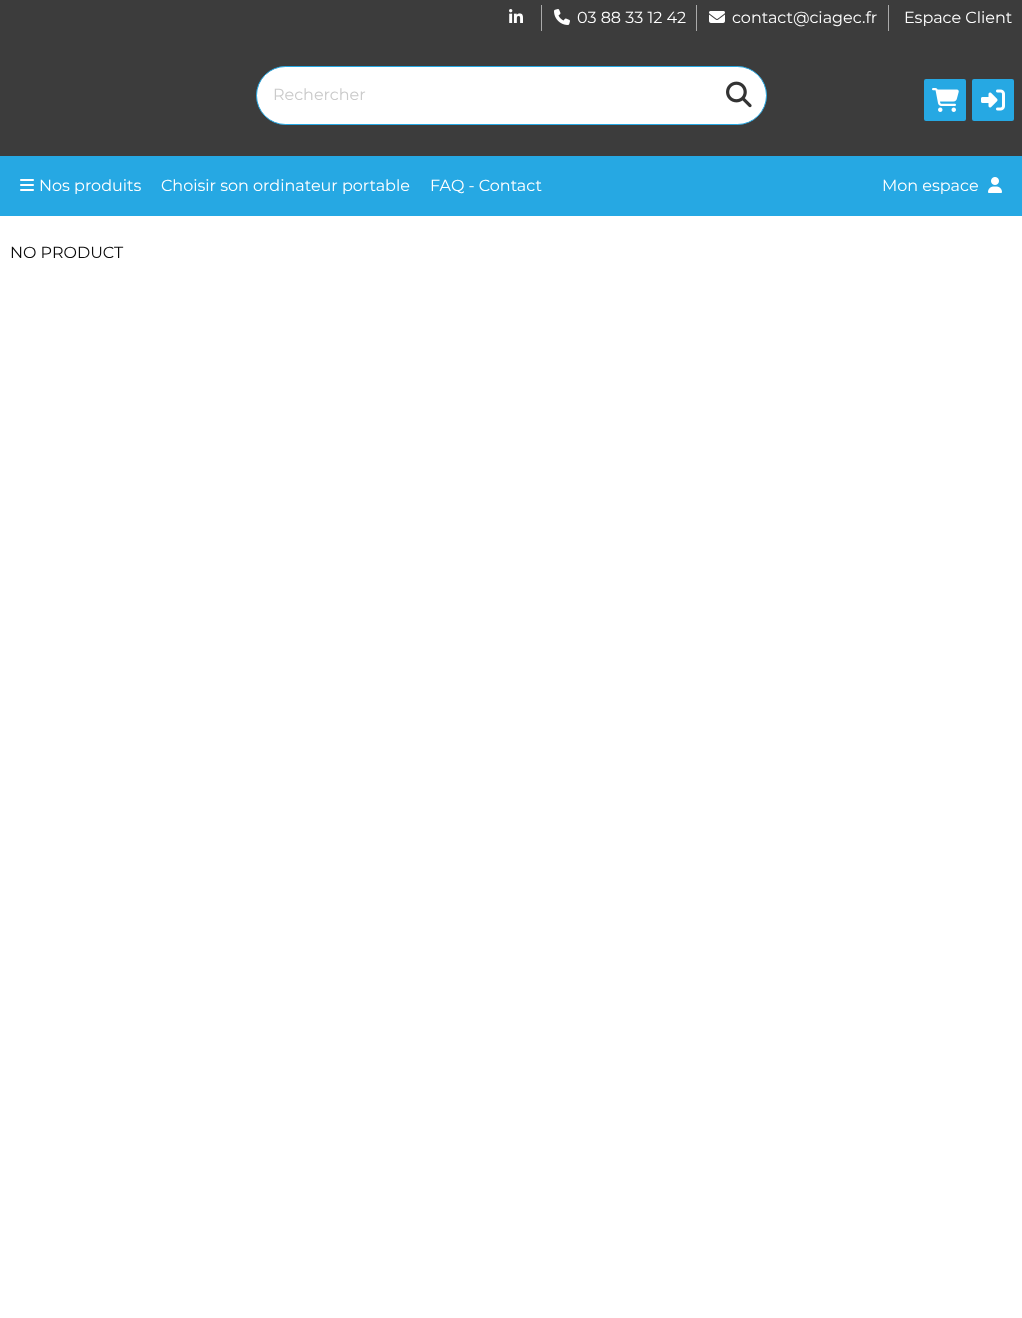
<!DOCTYPE html>
<meta charset="utf-8">
<style>body { margin: 0 } canvas { display: block }</style>
<canvas id="canvas" width="1022" height="1318"></canvas>
<script type="module">
  const canvas = document.getElementById("canvas");
  const g = canvas.getContext("2d");
  g.miterLimit = 4;
  g.fontKerning = "normal";
  function drawText(s, x, y, [font, color]) {
    g.font = font;
    g.fillStyle = color;
    g.fillText(s, x, y);
  }
  function fillBox(x, y, w, h, color) {
    g.fillStyle = color;
    g.fillRect(x, y, w, h);
  }
  function fillRounded(x, y, w, h, r, color) {
    g.fillStyle = color;
    g.beginPath();
    g.roundRect(x, y, w, h, r);
    g.fill();
  }
  async function drawPicture(src, x, y, w, h) {
    const img = new Image();
    img.src = src;
    await img.decode();
    g.drawImage(img, x, y, w, h);
  }

  const s1 = ["16px Montserrat", "#FFFFFF"];
  const s2 = ["16px Montserrat", "#CACACA"];
  const s3 = ["16px Montserrat", "#0A0A0A"];

  fillBox(0, 0, 1022, 1318, "#FFFFFF");
  fillBox(0, 0, 1022, 156, "#3C3C3C");
  fillBox(541, 5, 1, 26, "#AAAAAA");
  await drawPicture("pic1.png", 509, 9, 14, 14);
  fillBox(696, 5, 1, 26, "#AAAAAA");
  await drawPicture("pic2.png", 554, 9, 16, 16);
  drawText("03 88 33 12 42", 577, 23, s1);
  fillBox(888, 5, 1, 26, "#AAAAAA");
  await drawPicture("pic3.png", 709, 11, 16, 12);
  drawText("contact@ciagec.fr", 732, 23, s1);
  drawText("Espace Client", 904, 23, s1);
  g.beginPath();
  g.roundRect(256.5, 66.5, 510, 58, 29);
  g.fill();
  g.strokeStyle = "#26A8E3";
  g.stroke();
  fillBox(265, 75, 1, 1, "#FFFFFF");
  drawText("Rechercher", 273, 100, s2);
  await drawPicture("pic4.png", 726, 81, 26, 27);
  fillRounded(924, 79, 42, 42, 2, "#26A8E3");
  await drawPicture("pic5.png", 932, 88, 27, 24);
  fillRounded(972, 79, 42, 42, 2, "#26A8E3");
  await drawPicture("pic6.png", 981, 89, 24, 22);
  fillBox(0, 156, 1022, 60, "#26A8E3");
  await drawPicture("pic7.png", 20, 179, 14, 12);
  drawText("Nos produits", 39, 191, s1);
  drawText("Choisir son ordinateur portable", 161, 191, s1);
  drawText("FAQ - Contact", 430, 191, s1);
  drawText("Mon espace", 882, 191, s1);
  await drawPicture("pic8.png", 988, 177, 14, 16);
  drawText("NO PRODUCT", 10, 258, s3);
</script>
